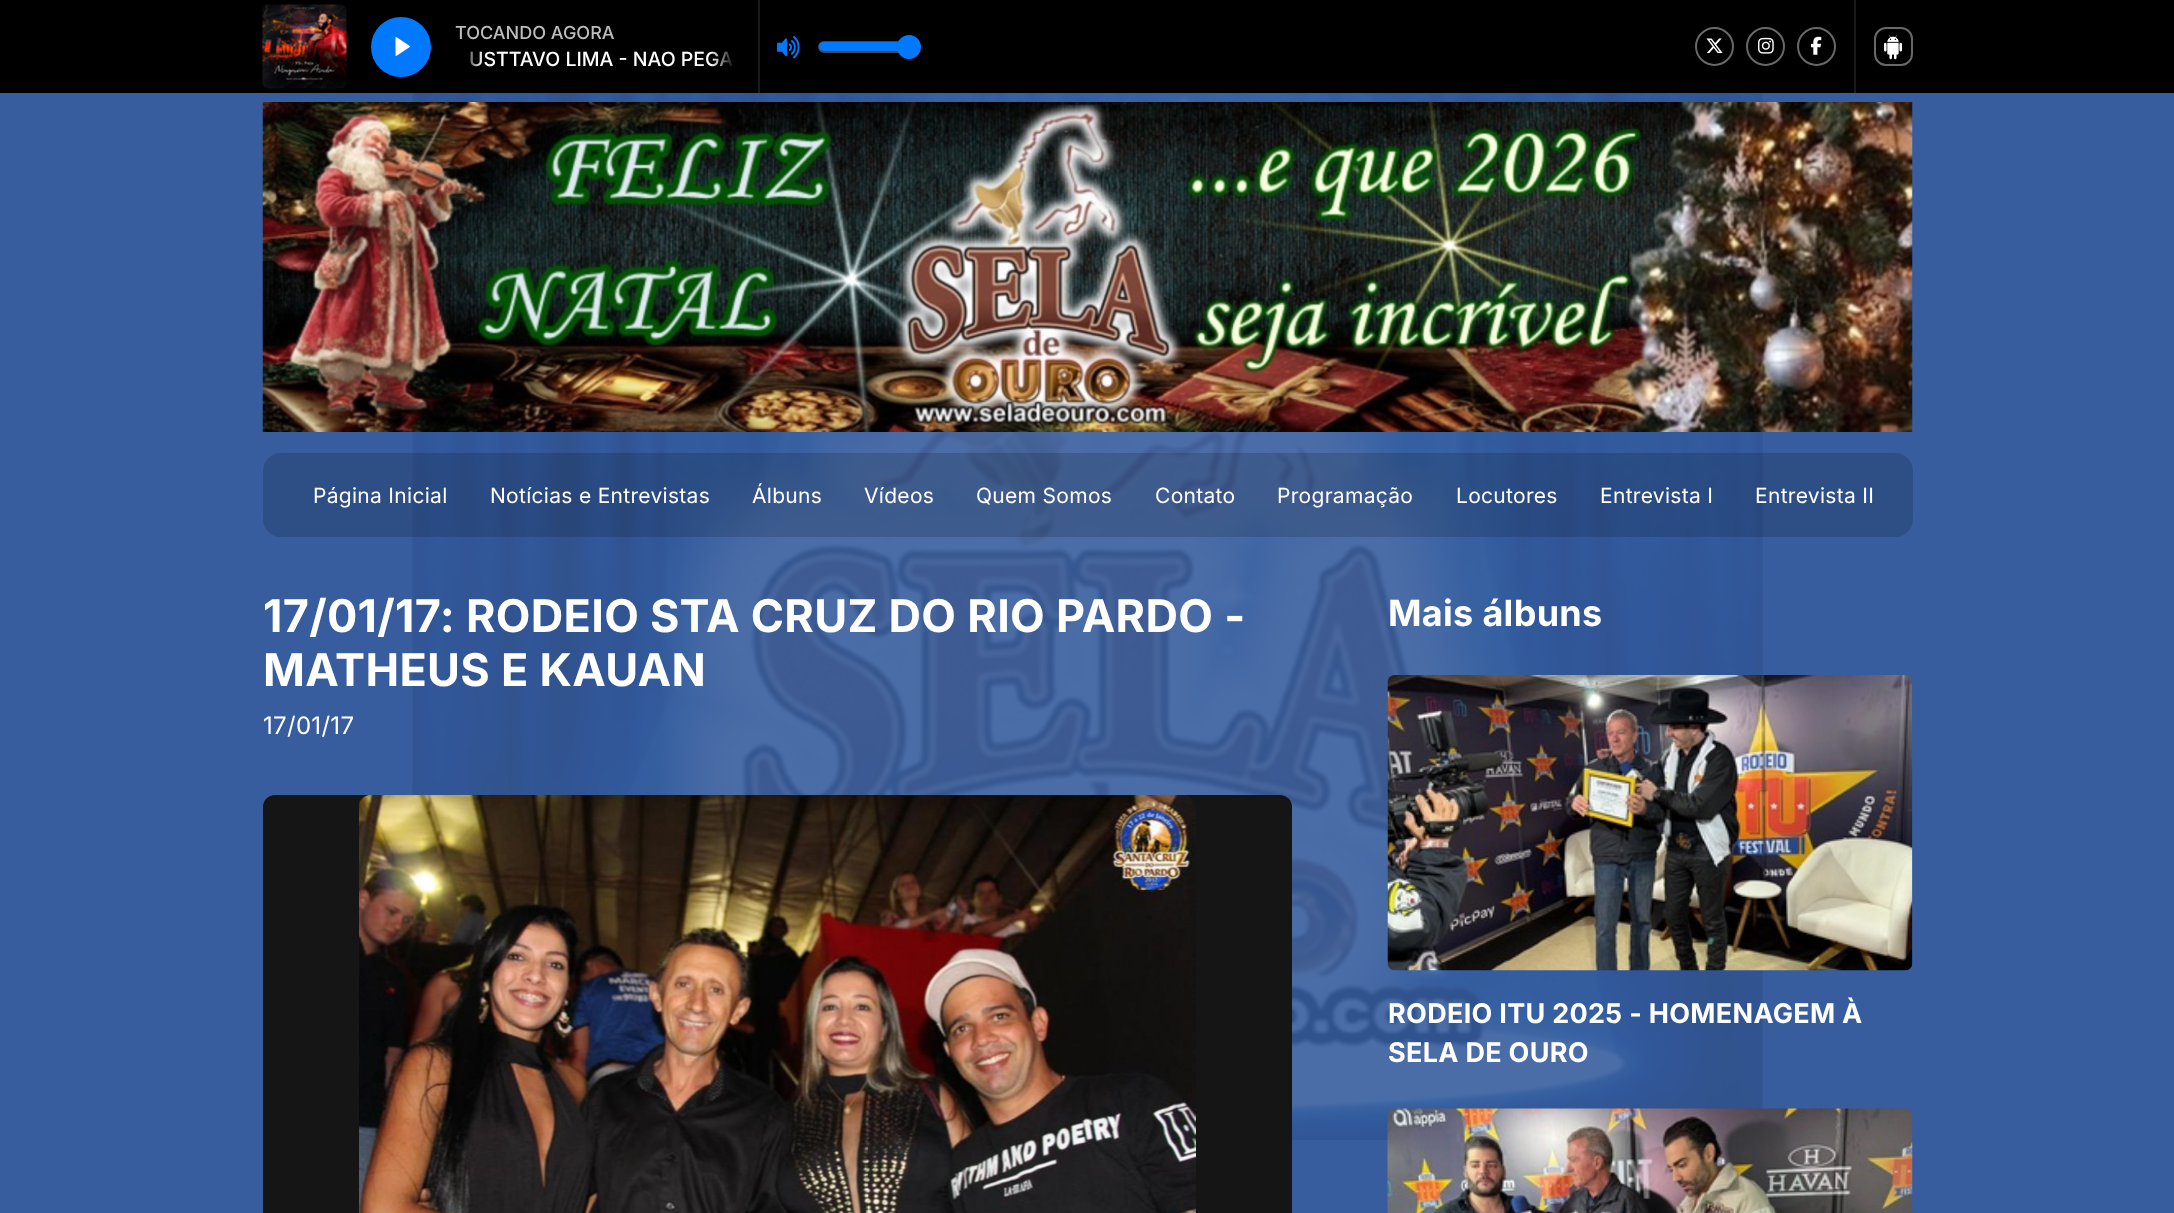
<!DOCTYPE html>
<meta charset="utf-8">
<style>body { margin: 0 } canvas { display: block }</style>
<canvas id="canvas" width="2174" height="1213"></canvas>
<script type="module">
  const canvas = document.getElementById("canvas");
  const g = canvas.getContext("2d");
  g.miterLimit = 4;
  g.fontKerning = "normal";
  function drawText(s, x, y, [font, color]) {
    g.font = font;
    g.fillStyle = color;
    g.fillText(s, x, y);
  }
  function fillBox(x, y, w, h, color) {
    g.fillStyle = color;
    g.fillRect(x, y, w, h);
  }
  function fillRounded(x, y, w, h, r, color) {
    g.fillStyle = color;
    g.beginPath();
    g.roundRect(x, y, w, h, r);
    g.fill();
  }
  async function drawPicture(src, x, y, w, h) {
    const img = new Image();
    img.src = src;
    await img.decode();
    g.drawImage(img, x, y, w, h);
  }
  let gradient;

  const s1 = ["500 18px Inter", "#BDBDBD"];
  const s2 = ["500 19.5px Inter", "#FFFFFF"];
  const s3 = ["21px Inter", "#FFFFFF"];
  const s4 = ["bold 45px Inter", "#FFFFFF"];
  const s5 = ["24px Inter", "#FFFFFF"];
  const s6 = ["bold 36px Inter", "#FFFFFF"];
  const s7 = ["bold 27px Inter", "#FFFFFF"];

  fillBox(0, 0, 2174, 1213, "#375D9E");
  fillBox(0, 0, 2174, 93, "#000000");
  fillBox(758, 0, 2, 93, "#1A1A1A");
  await drawPicture("pic1.png", 262, 4, 85, 85);
  g.fillStyle = "#0079FF";
  g.beginPath();
  g.arc(401, 47, 30, 0, Math.PI * 2);
  g.fill();
  await drawPicture("pic2.png", 395, 37, 15, 19);
  drawText("TOCANDO AGORA", 455, 39, s1);
  drawText("USTTAVO LIMA - NAO PEGA", 469, 66, s2);
  gradient = g.createLinearGradient(455, 59, 483, 59);
  gradient.addColorStop(0.2, "#000000");
  gradient.addColorStop(1, "rgba(0, 0, 0, 0)");
  g.fillStyle = gradient;
  g.fillRect(470, 51, 12, 16);
  gradient = g.createLinearGradient(740, 59, 711, 59);
  gradient.addColorStop(0.2, "#000000");
  gradient.addColorStop(1, "rgba(0, 0, 0, 0)");
  g.fillStyle = gradient;
  g.fillRect(712, 51, 21, 16);
  await drawPicture("pic3.png", 777, 36, 23, 23);
  g.beginPath();
  g.roundRect(819, 42, 91, 10, 5);
  g.strokeStyle = "#474747";
  g.lineWidth = 2;
  g.stroke();
  fillRounded(819, 42, 90, 9, 4.5, "#0079FF");
  g.beginPath();
  g.arc(909, 47, 11, 0, Math.PI * 2);
  g.fill();
  g.strokeStyle = "#0079FF";
  g.stroke();
  g.beginPath();
  g.arc(1714.5, 46.5, 18.5, 0, Math.PI * 2);
  g.strokeStyle = "#686868";
  g.stroke();
  await drawPicture("pic4.png", 1706, 38, 17, 16);
  g.beginPath();
  g.arc(1765.5, 46.5, 18.5, 0, Math.PI * 2);
  g.stroke();
  await drawPicture("pic5.png", 1758, 37, 16, 17);
  g.beginPath();
  g.arc(1816.5, 46.5, 18.5, 0, Math.PI * 2);
  g.stroke();
  await drawPicture("pic6.png", 1811, 36, 11, 19);
  fillBox(1854, 0, 2, 93, "#1A1A1A");
  g.beginPath();
  g.roundRect(1875, 28, 37, 37, 11);
  g.stroke();
  await drawPicture("pic7.png", 1884, 35, 18, 25);
  await drawPicture("pic12.png", 412, 93, 1351, 1047);
  await drawPicture("pic8.png", 262, 102, 1651, 330);
  fillRounded(263, 453, 1650, 84, 18, "rgba(0, 0, 0, 0.15)");
  g.letterSpacing = "0.3px";
  drawText("Página Inicial", 313, 503, s3);
  drawText("Notícias e Entrevistas", 490, 503, s3);
  drawText("Álbuns", 752, 503, s3);
  drawText("Vídeos", 864, 503, s3);
  drawText("Quem Somos", 976, 503, s3);
  drawText("Contato", 1155, 503, s3);
  drawText("Programação", 1277, 503, s3);
  drawText("Locutores", 1456, 503, s3);
  drawText("Entrevista I", 1600, 503, s3);
  drawText("Entrevista II", 1755, 503, s3);
  drawText("17/01/17: RODEIO STA CRUZ DO RIO PARDO -", 263, 632, s4);
  drawText("MATHEUS E KAUAN", 263, 686, s4);
  drawText("17/01/17", 263, 734, s5);
  drawText("Mais álbuns", 1388, 626, s6);
  await drawPicture("pic9.png", 1387, 675, 526, 296);
  drawText("RODEIO ITU 2025 - HOMENAGEM À", 1388, 1023, s7);
  drawText("SELA DE OURO", 1388, 1062, s7);
  await drawPicture("pic10.png", 1387, 1108, 526, 105);
  fillRounded(263, 795, 1029, 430, 12, "#151515");
  await drawPicture("pic11.png", 359, 795, 837, 418);
</script>
